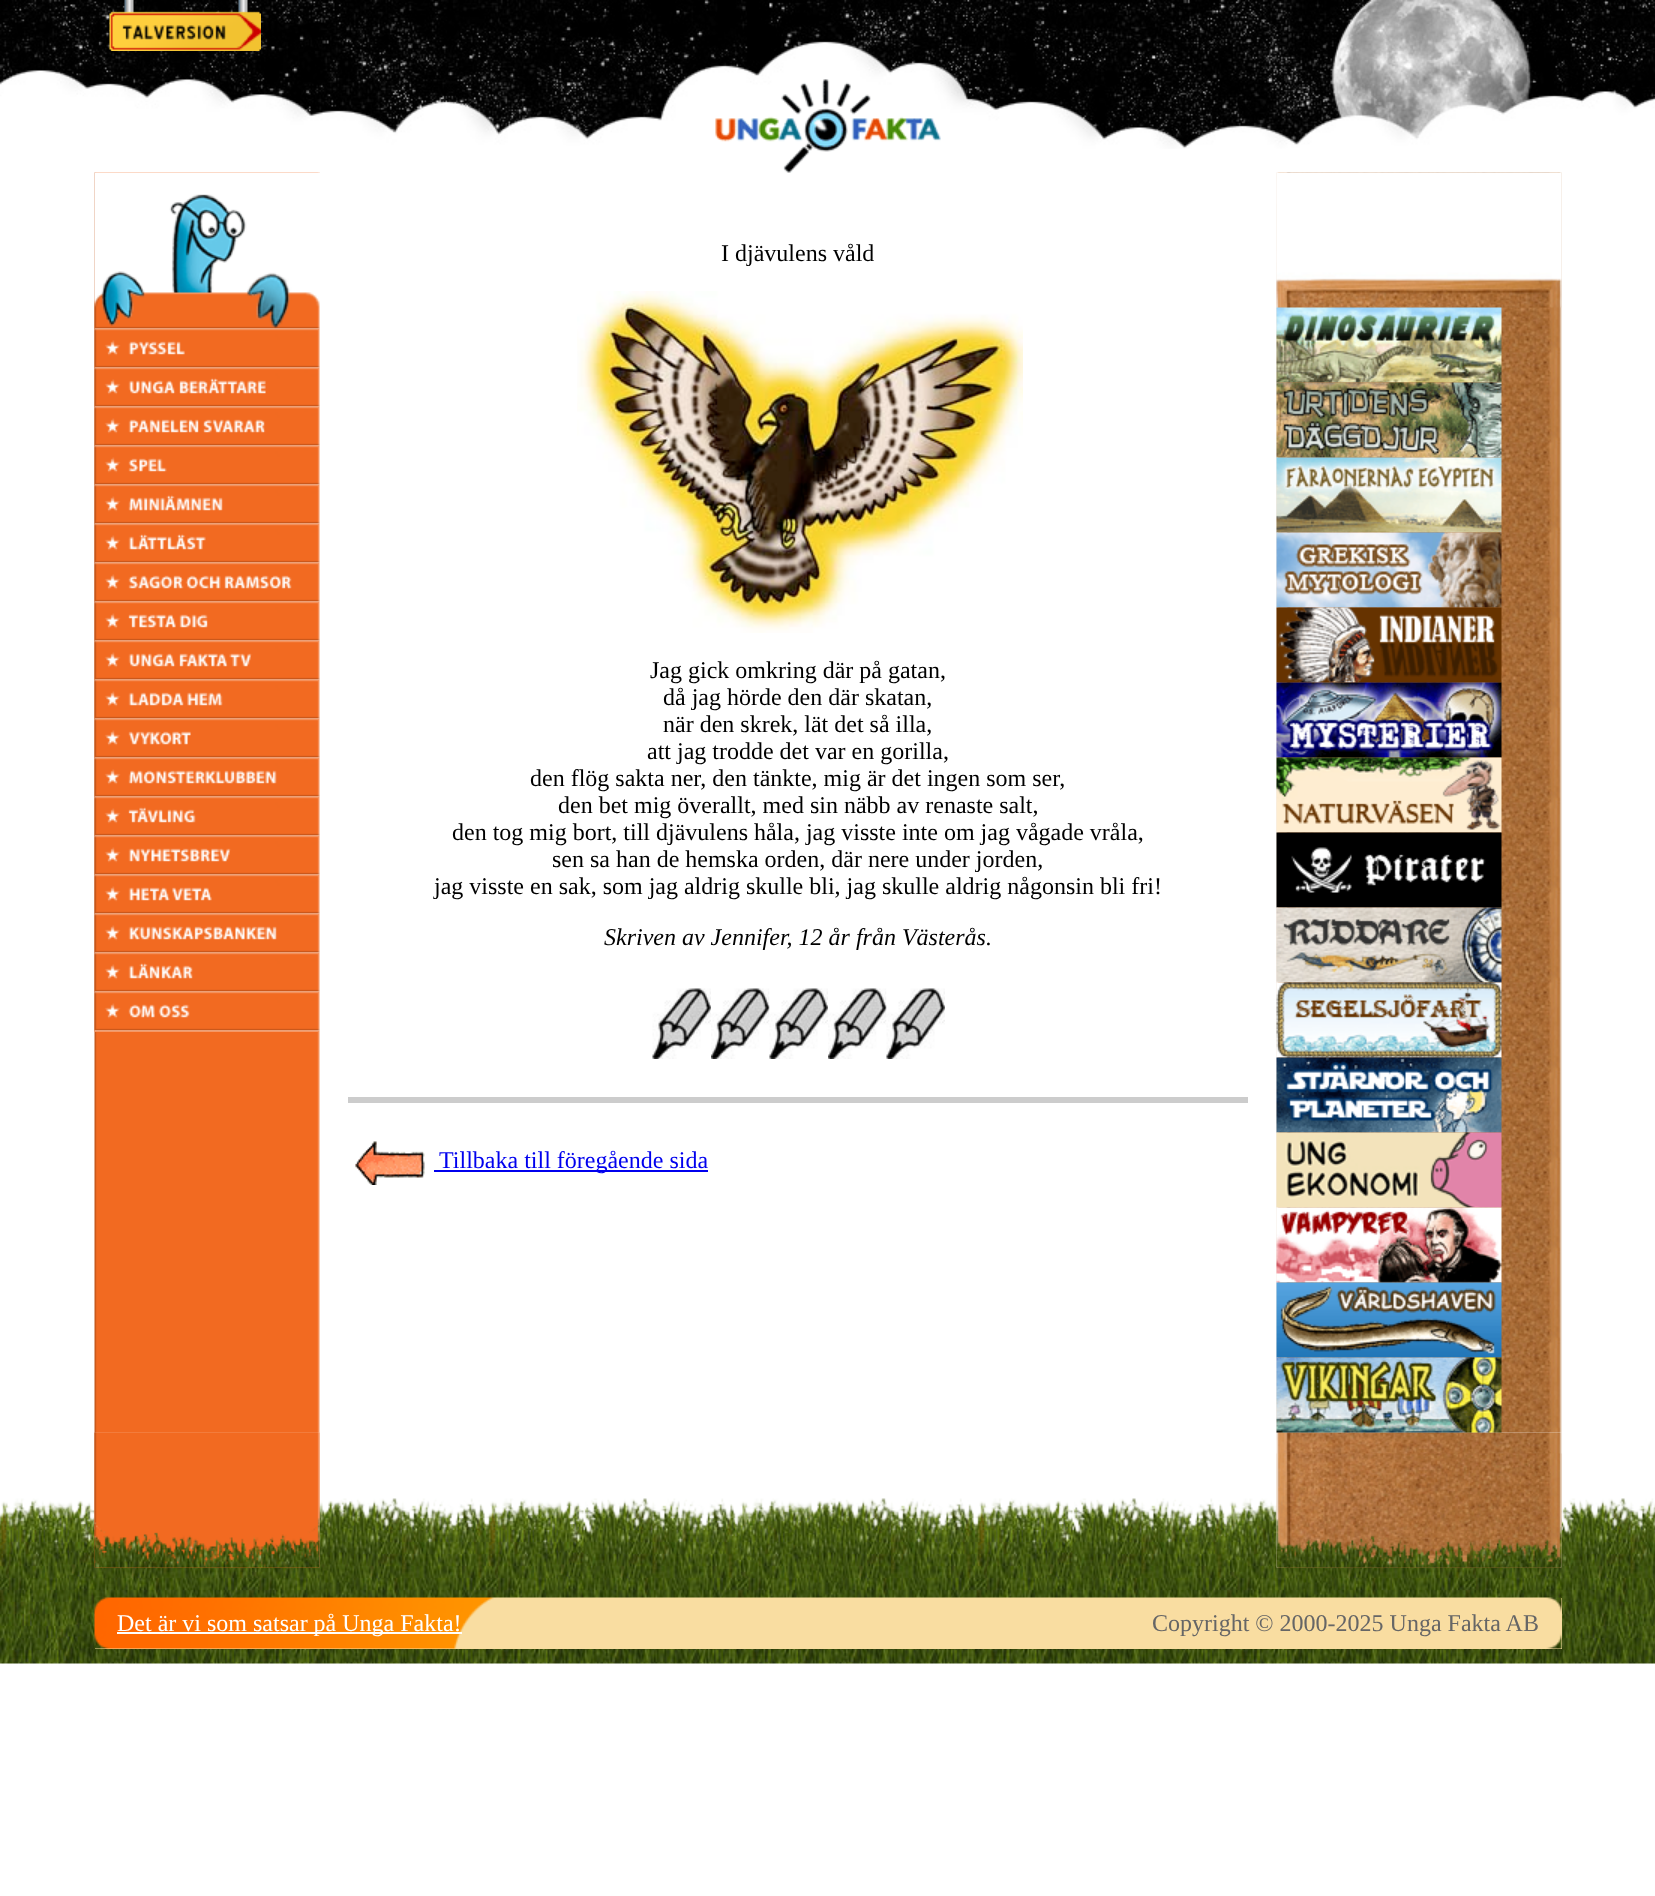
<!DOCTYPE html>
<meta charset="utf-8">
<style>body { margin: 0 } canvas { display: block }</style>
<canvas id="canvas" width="1655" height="1896"></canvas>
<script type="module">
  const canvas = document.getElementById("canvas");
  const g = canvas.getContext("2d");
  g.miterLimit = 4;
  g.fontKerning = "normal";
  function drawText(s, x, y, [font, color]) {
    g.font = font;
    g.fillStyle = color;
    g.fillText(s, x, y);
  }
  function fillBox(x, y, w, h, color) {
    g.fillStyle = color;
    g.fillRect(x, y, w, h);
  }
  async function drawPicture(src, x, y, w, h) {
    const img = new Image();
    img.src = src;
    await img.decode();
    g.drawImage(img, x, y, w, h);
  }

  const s1 = ["24px Liberation Serif", "#000000"];
  const s2 = ["italic 24px Liberation Serif", "#000000"];
  const s3 = ["24px Liberation Serif", "#0000EE"];
  const s4 = ["24px Liberation Serif", "#FFFFFF"];
  const s5 = ["24px Liberation Serif", "#666666"];

  fillBox(0, 0, 1655, 1896, "#FFFFFF");
  await drawPicture("pic1.png", 0, 0, 1655, 149);
  await drawPicture("pic2.png", 109, 0, 152, 51);
  await drawPicture("pic3.png", 715, 79, 226, 94);
  await drawPicture("pic4.png", 0, 1498, 1655, 166);
  await drawPicture("pic5.png", 94, 172, 226, 1261);
  fillBox(95, 173, 225, 859, "#FFFFFF");
  await drawPicture("pic6.png", 94, 172, 226, 157);
  await drawPicture("pic7.png", 94, 328, 226, 40);
  await drawPicture("pic8.png", 94, 367, 226, 40);
  await drawPicture("pic9.png", 94, 406, 226, 40);
  await drawPicture("pic10.png", 94, 445, 226, 40);
  await drawPicture("pic11.png", 94, 484, 226, 40);
  await drawPicture("pic12.png", 94, 523, 226, 40);
  await drawPicture("pic13.png", 94, 562, 226, 40);
  await drawPicture("pic14.png", 94, 601, 226, 40);
  await drawPicture("pic15.png", 94, 640, 226, 40);
  await drawPicture("pic16.png", 94, 679, 226, 40);
  await drawPicture("pic17.png", 94, 718, 226, 40);
  await drawPicture("pic18.png", 94, 757, 226, 40);
  await drawPicture("pic19.png", 94, 796, 226, 40);
  await drawPicture("pic20.png", 94, 835, 226, 40);
  await drawPicture("pic21.png", 94, 874, 226, 40);
  await drawPicture("pic22.png", 94, 913, 226, 40);
  await drawPicture("pic23.png", 94, 952, 226, 40);
  await drawPicture("pic24.png", 94, 991, 226, 40);
  await drawPicture("pic25.png", 94, 1030, 226, 2);
  drawText("I djävulens våld", 721, 261, s1);
  await drawPicture("pic26.png", 577, 291, 446, 342);
  drawText("Jag gick omkring där på gatan,", 650, 678, s1);
  drawText("då jag hörde den där skatan,", 663, 705, s1);
  drawText("när den skrek, lät det så illa,", 663, 732, s1);
  drawText("att jag trodde det var en gorilla,", 647, 759, s1);
  drawText("den flög sakta ner, den tänkte, mig är det ingen som ser,", 530, 786, s1);
  drawText("den bet mig överallt, med sin näbb av renaste salt,", 558, 813, s1);
  drawText("den tog mig bort, till djävulens håla, jag visste inte om jag vågade vråla,", 452, 840, s1);
  drawText("sen sa han de hemska orden, där nere under jorden,", 552, 867, s1);
  drawText("jag visste en sak, som jag aldrig skulle bli, jag skulle aldrig någonsin bli fri!", 434, 894, s1);
  drawText("Skriven av Jennifer, 12 år från Västerås.", 604, 945, s2);
  await drawPicture("pic27.png", 652, 988, 59, 71);
  await drawPicture("pic28.png", 711, 988, 59, 71);
  await drawPicture("pic29.png", 769, 988, 59, 71);
  await drawPicture("pic30.png", 828, 988, 59, 71);
  await drawPicture("pic29.png", 886, 988, 59, 71);
  fillBox(348, 1097, 900, 6, "#CCCCCC");
  await drawPicture("pic31.png", 355, 1141, 70, 44);
  fillBox(434, 1170, 274, 2, "#0000EE");
  drawText("Tillbaka till föregående sida", 439, 1168, s3);
  await drawPicture("pic32.png", 1276, 172, 286, 1261);
  await drawPicture("pic33.png", 1276, 172, 286, 136);
  await drawPicture("pic34.png", 1276, 307, 226, 76);
  await drawPicture("pic35.png", 1276, 382, 226, 76);
  await drawPicture("pic36.png", 1276, 457, 226, 76);
  await drawPicture("pic37.png", 1276, 532, 226, 76);
  await drawPicture("pic38.png", 1276, 607, 226, 76);
  await drawPicture("pic39.png", 1276, 682, 226, 76);
  await drawPicture("pic40.png", 1276, 757, 226, 76);
  await drawPicture("pic41.png", 1276, 832, 226, 76);
  await drawPicture("pic42.png", 1276, 907, 226, 76);
  await drawPicture("pic43.png", 1276, 982, 226, 76);
  await drawPicture("pic44.png", 1276, 1057, 226, 76);
  await drawPicture("pic45.png", 1276, 1132, 226, 76);
  await drawPicture("pic46.png", 1276, 1207, 226, 76);
  await drawPicture("pic47.png", 1276, 1282, 226, 76);
  await drawPicture("pic51.png", 1276, 1432, 286, 136);
  await drawPicture("pic48.png", 1276, 1357, 226, 76);
  await drawPicture("pic49.png", 94, 1432, 226, 136);
  await drawPicture("pic50.png", 94, 1432, 226, 136);
  await drawPicture("pic52.png", 1276, 1453, 286, 115);
  fillBox(95, 1598, 1467, 51, "#F9DDA1");
  await drawPicture("pic53.png", 94, 1597, 1468, 52);
  fillBox(117, 1632, 345, 2, "#FFFFFF");
  drawText("Det är vi som satsar på Unga Fakta!", 117, 1631, s4);
  drawText("Copyright © 2000-2025 Unga Fakta AB", 1152, 1631, s5);
</script>
